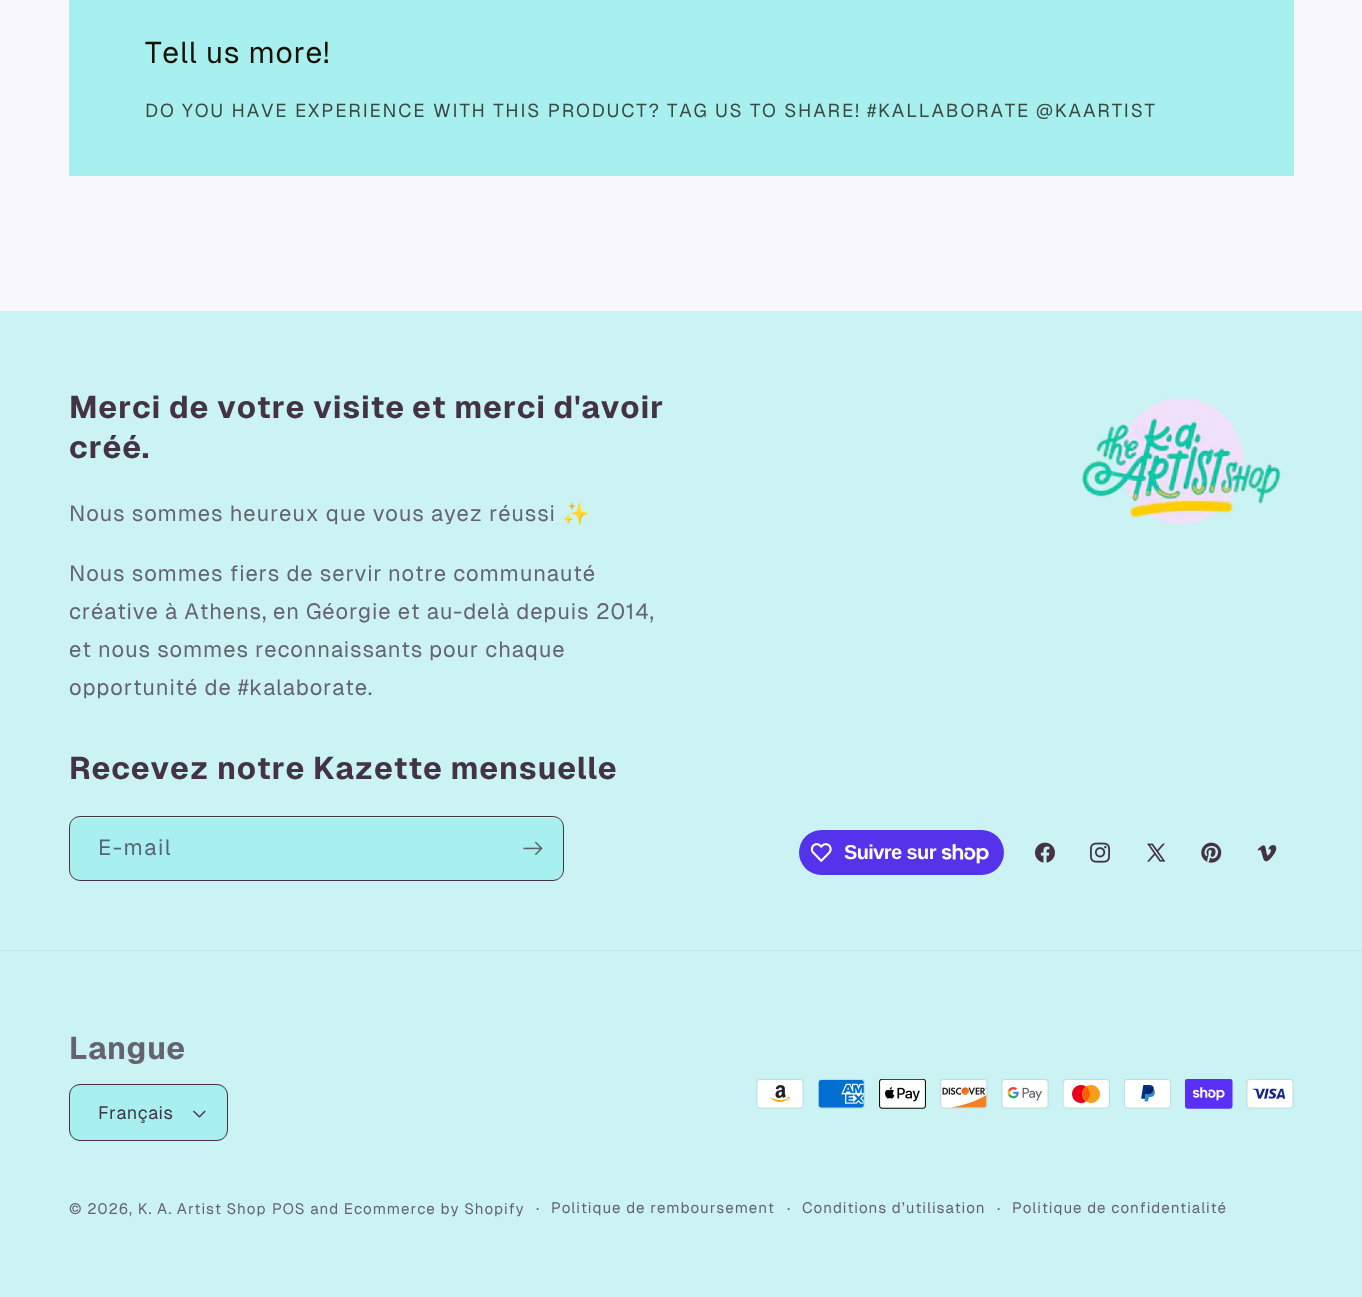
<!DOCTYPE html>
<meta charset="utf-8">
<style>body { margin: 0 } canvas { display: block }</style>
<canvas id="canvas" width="1362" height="1297"></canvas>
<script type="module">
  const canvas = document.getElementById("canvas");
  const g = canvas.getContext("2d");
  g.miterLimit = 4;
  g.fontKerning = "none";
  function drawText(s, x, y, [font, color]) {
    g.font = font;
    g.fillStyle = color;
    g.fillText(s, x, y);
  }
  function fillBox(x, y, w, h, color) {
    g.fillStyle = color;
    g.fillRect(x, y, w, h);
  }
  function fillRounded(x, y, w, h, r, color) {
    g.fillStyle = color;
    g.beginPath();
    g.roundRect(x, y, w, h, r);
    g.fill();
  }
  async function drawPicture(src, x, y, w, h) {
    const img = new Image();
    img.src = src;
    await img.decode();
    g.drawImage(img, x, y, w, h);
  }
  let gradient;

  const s1 = ["30px Geist", "#171105"];
  const s2 = ["18.75px Geist", "#3B4940"];
  const s3 = ["bold 31.25px Geist", "#443344"];
  const s4 = ["22px Geist", "#666370"];
  const s5 = ["22px Noto Color Emoji", "#666370"];
  const s6 = ["22px Geist", "#5D626F"];
  const s7 = ["bold 20px Liberation Sans", "#FFFFFF"];
  const s8 = ["bold 31.25px Geist", "#666370"];
  const s9 = ["18px Geist", "#443344"];
  const s10 = ["15.1px Geist", "#666370"];
  const s11 = ["16px Geist", "#666370"];

  fillBox(0, 0, 1362, 1297, "#F8F8FB");
  gradient = g.createLinearGradient(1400, 1252, -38, 45);
  gradient.addColorStop(1, "#A8EFEF");
  gradient.addColorStop(1, "#FFFCFF");
  g.fillStyle = gradient;
  g.fillRect(69, 0, 1225, 176);
  g.letterSpacing = "0.75px";
  drawText("Tell us more!", 145, 63, s1);
  g.letterSpacing = "1.8px";
  drawText("DO YOU HAVE EXPERIENCE", 145, 117, s2);
  drawText("WITH THIS PRODUCT?", 433, 117, s2);
  drawText("TAG US TO SHARE! #KALLABORATE", 667, 117, s2);
  drawText("@KAARTIST", 1036, 117, s2);
  gradient = g.createLinearGradient(28, -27, 1334, 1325);
  gradient.addColorStop(1, "#CBF3F3");
  gradient.addColorStop(1, "#554466");
  g.fillStyle = gradient;
  g.fillRect(0, 311, 1362, 986);
  g.letterSpacing = "0.75px";
  drawText("Merci de votre visite", 69, 418, s3);
  drawText("et merci d'avoir", 412, 418, s3);
  drawText("créé.", 69, 458, s3);
  g.letterSpacing = "0.83px";
  drawText("Nous sommes heureux que vous", 69, 521, s4);
  drawText("ayez réussi", 431, 521, s4);
  drawText("✨", 562, 521, s5);
  drawText("Nous sommes fiers de servir", 69, 581, s4);
  drawText("notre communauté", 388, 581, s4);
  drawText("créative à Athens,", 69, 619, s4);
  drawText("en Géorgie et au-delà depuis", 273, 619, s4);
  drawText("2014,", 596, 619, s4);
  drawText("et nous sommes reconnaissants", 69, 657, s4);
  drawText("pour chaque", 429, 657, s4);
  drawText("opportunité de #kalaborate.", 69, 695, s4);
  await drawPicture("pic1.png", 1082, 397, 199, 128);
  g.letterSpacing = "0.75px";
  drawText("Recevez notre", 69, 779, s3);
  drawText("Kazette mensuelle", 313, 779, s3);
  fillRounded(70, 818, 493, 62, 10, "#A8EFEF");
  g.beginPath();
  g.roundRect(69.5, 816.5, 494, 64, 10.5);
  g.strokeStyle = "#443344";
  g.stroke();
  g.letterSpacing = "1.5px";
  drawText("E-mail", 98, 855, s6);
  await drawPicture("pic2.png", 523, 841, 20, 14);
  fillRounded(799, 830, 205, 45, 22.5, "#5433EB");
  await drawPicture("pic3.png", 810, 843, 22, 19);
  g.letterSpacing = "-0.6px";
  drawText("Suivre sur", 844, 859, s7);
  await drawPicture("pic4.png", 941, 844, 48, 20);
  await drawPicture("pic5.png", 1035, 842, 20, 21);
  await drawPicture("pic6.png", 1090, 842, 20, 21);
  await drawPicture("pic7.png", 1147, 843, 19, 19);
  await drawPicture("pic8.png", 1201, 842, 21, 21);
  await drawPicture("pic9.png", 1257, 845, 20, 17);
  fillBox(0, 950, 1362, 1, "#C0E4E5");
  g.letterSpacing = "0.5px";
  drawText("Langue", 69, 1059, s8);
  fillRounded(69, 1084, 159, 57, 11, "#A8EFEF");
  await drawPicture("pic10.png", 193, 1110, 13, 8);
  g.beginPath();
  g.roundRect(69.5, 1084.5, 158, 56, 10.5);
  g.stroke();
  drawText("Français", 98, 1119, s9);
  await drawPicture("pic11.png", 756, 1079, 48, 30);
  await drawPicture("pic12.png", 818, 1079, 47, 30);
  await drawPicture("pic13.png", 879, 1079, 47, 30);
  await drawPicture("pic14.png", 940, 1079, 48, 30);
  await drawPicture("pic15.png", 1001, 1079, 48, 30);
  await drawPicture("pic16.png", 1063, 1079, 47, 30);
  await drawPicture("pic17.png", 1124, 1079, 47, 30);
  await drawPicture("pic18.png", 1185, 1079, 48, 30);
  await drawPicture("pic19.png", 1246, 1079, 48, 30);
  g.letterSpacing = "0.95px";
  drawText("© 2026, K. A. Artist Shop", 69, 1214, s10);
  drawText("POS and Ecommerce by Shopify", 272, 1214, s10);
  drawText("·", 536, 1214, s11);
  drawText("Politique de remboursement", 551, 1213, s10);
  drawText("·", 787, 1214, s11);
  drawText("Conditions d’utilisation", 802, 1213, s10);
  drawText("·", 997, 1214, s11);
  drawText("Politique de confidentialité", 1012, 1213, s10);
</script>
